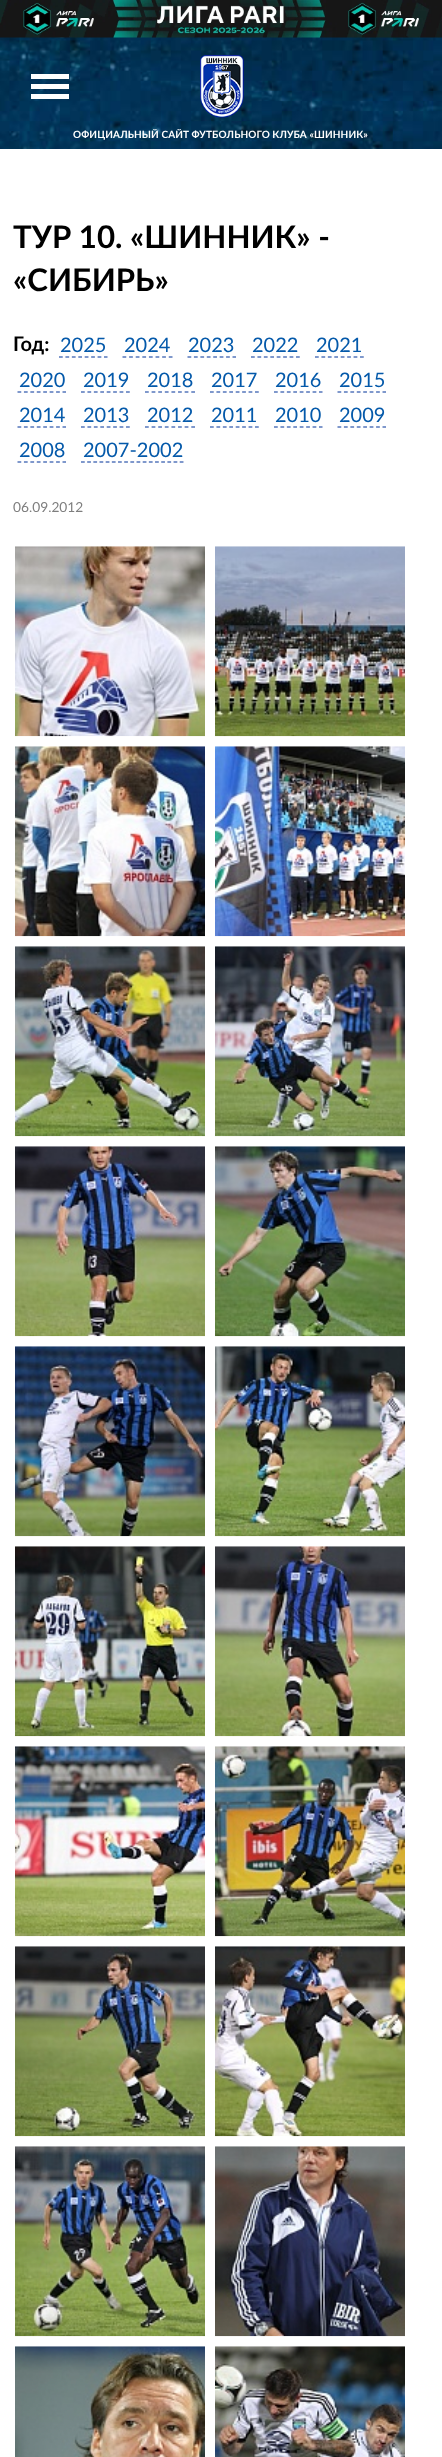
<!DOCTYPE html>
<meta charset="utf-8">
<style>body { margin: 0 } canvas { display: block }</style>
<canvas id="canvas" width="442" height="2457"></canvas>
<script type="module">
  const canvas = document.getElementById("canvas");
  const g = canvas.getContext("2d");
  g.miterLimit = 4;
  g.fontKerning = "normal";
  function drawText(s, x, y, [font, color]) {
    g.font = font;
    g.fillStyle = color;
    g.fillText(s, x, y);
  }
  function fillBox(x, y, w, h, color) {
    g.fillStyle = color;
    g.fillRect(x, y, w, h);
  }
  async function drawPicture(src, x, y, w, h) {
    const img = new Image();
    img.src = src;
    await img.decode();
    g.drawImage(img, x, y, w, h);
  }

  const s1 = ["bold 10px Lato", "#FFFFFF"];
  const s2 = ["bold 31.25px Lato", "#000000"];
  const s3 = ["bold 20px Lato", "#000000"];
  const s4 = ["20px Lato", "#0459AA"];
  const s5 = ["13.75px Lato", "#7E7E7E"];

  fillBox(0, 0, 442, 2457, "#FFFFFF");
  await drawPicture("pic1.png", 0, 37, 442, 112);
  await drawPicture("pic2.png", 0, 0, 442, 38);
  fillBox(31, 74, 38, 5, "#FFFFFF");
  fillBox(31, 84, 38, 5, "#FFFFFF");
  fillBox(31, 94, 38, 5, "#FFFFFF");
  await drawPicture("pic3.png", 200, 55, 44, 63);
  g.letterSpacing = "0.1px";
  drawText("ОФИЦИАЛЬНЫЙ САЙТ ФУТБОЛЬНОГО КЛУБА «ШИННИК»", 73, 138, s1);
  g.letterSpacing = "0px";
  drawText("ТУР 10. «ШИННИК» -", 13, 248, s2);
  drawText("«СИБИРЬ»", 13, 291, s2);
  drawText("Год:", 13, 351, s3);
  drawText("2025", 60, 352, s4);
  g.beginPath();
  g.moveTo(59, 357);
  g.lineTo(107.5, 357);
  g.strokeStyle = "#003399";
  g.lineWidth = 1.2;
  g.setLineDash([3.75, 2.68]);
  g.stroke();
  drawText("2024", 124, 352, s4);
  g.beginPath();
  g.moveTo(122.5, 357);
  g.lineTo(172.5, 357);
  g.setLineDash([3.75, 2.86]);
  g.stroke();
  drawText("2023", 188, 352, s4);
  g.beginPath();
  g.moveTo(187.5, 357);
  g.lineTo(236, 357);
  g.setLineDash([3.75, 2.68]);
  g.stroke();
  drawText("2022", 252, 352, s4);
  g.beginPath();
  g.moveTo(251, 357);
  g.lineTo(300, 357);
  g.stroke();
  drawText("2021", 316, 352, s4);
  g.beginPath();
  g.moveTo(315, 357);
  g.lineTo(364, 357);
  g.stroke();
  drawText("2020", 19, 387, s4);
  g.beginPath();
  g.moveTo(17.5, 392);
  g.lineTo(66, 392);
  g.stroke();
  drawText("2019", 83, 387, s4);
  g.beginPath();
  g.moveTo(81, 392);
  g.lineTo(130, 392);
  g.stroke();
  drawText("2018", 147, 387, s4);
  g.beginPath();
  g.moveTo(145, 392);
  g.lineTo(195, 392);
  g.setLineDash([3.75, 2.86]);
  g.stroke();
  drawText("2017", 211, 387, s4);
  g.beginPath();
  g.moveTo(210, 392);
  g.lineTo(259, 392);
  g.setLineDash([3.75, 2.68]);
  g.stroke();
  drawText("2016", 275, 387, s4);
  g.beginPath();
  g.moveTo(274, 392);
  g.lineTo(322.5, 392);
  g.stroke();
  drawText("2015", 339, 387, s4);
  g.beginPath();
  g.moveTo(337.5, 392);
  g.lineTo(386, 392);
  g.stroke();
  drawText("2014", 19, 422, s4);
  g.beginPath();
  g.moveTo(17.5, 427);
  g.lineTo(66, 427);
  g.stroke();
  drawText("2013", 83, 422, s4);
  g.beginPath();
  g.moveTo(81, 427);
  g.lineTo(130, 427);
  g.stroke();
  drawText("2012", 147, 422, s4);
  g.beginPath();
  g.moveTo(145, 427);
  g.lineTo(195, 427);
  g.setLineDash([3.75, 2.86]);
  g.stroke();
  drawText("2011", 211, 422, s4);
  g.beginPath();
  g.moveTo(210, 427);
  g.lineTo(259, 427);
  g.setLineDash([3.75, 2.68]);
  g.stroke();
  drawText("2010", 275, 422, s4);
  g.beginPath();
  g.moveTo(274, 427);
  g.lineTo(322.5, 427);
  g.stroke();
  drawText("2009", 339, 422, s4);
  g.beginPath();
  g.moveTo(337.5, 427);
  g.lineTo(386, 427);
  g.stroke();
  drawText("2008", 19, 457, s4);
  g.beginPath();
  g.moveTo(17.5, 462);
  g.lineTo(66, 462);
  g.stroke();
  drawText("2007-2002", 83, 457, s4);
  g.beginPath();
  g.moveTo(81, 462);
  g.lineTo(184, 462);
  g.setLineDash([3.75, 2.42]);
  g.stroke();
  drawText("06.09.2012", 13, 512, s5);
  await drawPicture("pic4.png", 15, 546, 190, 191);
  await drawPicture("pic5.png", 215, 546, 190, 191);
  await drawPicture("pic6.png", 15, 746, 190, 191);
  await drawPicture("pic7.png", 215, 746, 190, 191);
  await drawPicture("pic8.png", 15, 946, 190, 191);
  await drawPicture("pic9.png", 215, 946, 190, 191);
  await drawPicture("pic10.png", 15, 1146, 190, 191);
  await drawPicture("pic11.png", 215, 1146, 190, 191);
  await drawPicture("pic12.png", 15, 1346, 190, 191);
  await drawPicture("pic13.png", 215, 1346, 190, 191);
  await drawPicture("pic14.png", 15, 1546, 190, 191);
  await drawPicture("pic15.png", 215, 1546, 190, 191);
  await drawPicture("pic16.png", 15, 1746, 190, 191);
  await drawPicture("pic17.png", 215, 1746, 190, 191);
  await drawPicture("pic18.png", 15, 1946, 190, 191);
  await drawPicture("pic19.png", 215, 1946, 190, 191);
  await drawPicture("pic20.png", 15, 2146, 190, 191);
  await drawPicture("pic21.png", 215, 2146, 190, 191);
  await drawPicture("pic22.png", 15, 2346, 190, 111);
  await drawPicture("pic23.png", 215, 2346, 190, 111);
</script>
